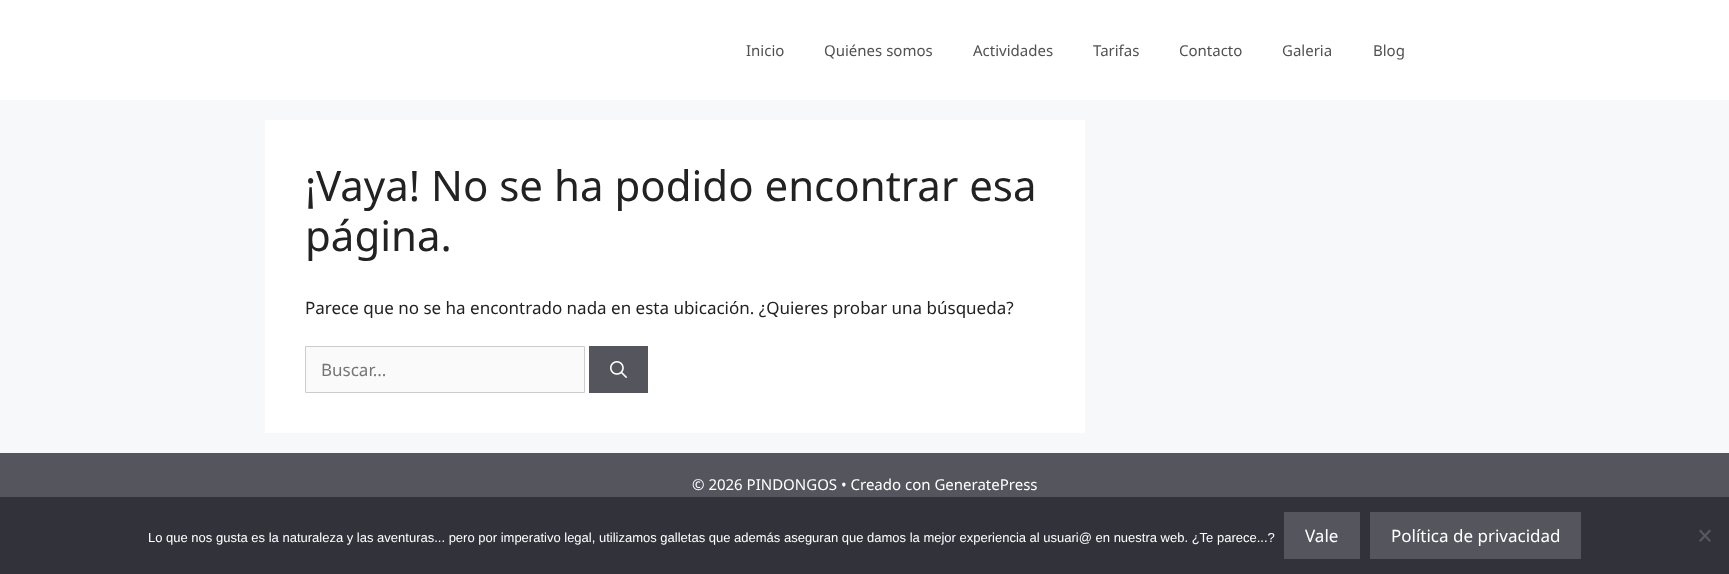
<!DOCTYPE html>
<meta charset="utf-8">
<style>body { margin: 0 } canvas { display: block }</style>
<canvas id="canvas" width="1729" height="574"></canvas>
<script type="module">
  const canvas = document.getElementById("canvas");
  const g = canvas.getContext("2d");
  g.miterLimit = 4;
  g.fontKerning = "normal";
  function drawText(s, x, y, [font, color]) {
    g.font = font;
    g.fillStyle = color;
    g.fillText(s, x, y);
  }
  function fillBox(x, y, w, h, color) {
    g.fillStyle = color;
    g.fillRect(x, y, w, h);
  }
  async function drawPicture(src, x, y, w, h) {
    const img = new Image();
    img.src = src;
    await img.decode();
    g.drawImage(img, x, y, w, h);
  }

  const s1 = ["15px Noto Sans", "#515151"];
  const s2 = ["42px Noto Sans", "#222222"];
  const s3 = ["17px Noto Sans", "#222222"];
  const s4 = ["17px Noto Sans", "#757575"];
  const s5 = ["15px Noto Sans", "#FFFFFF"];
  const s6 = ["13px Liberation Sans", "#FFFFFF"];
  const s7 = ["17px Noto Sans", "#FFFFFF"];

  fillBox(0, 0, 1729, 574, "#F7F8F9");
  fillBox(0, 0, 1729, 100, "#FFFFFF");
  drawText("Inicio", 746, 56, s1);
  drawText("Quiénes somos", 824, 56, s1);
  drawText("Actividades", 973, 56, s1);
  drawText("Tarifas", 1093, 56, s1);
  drawText("Contacto", 1179, 56, s1);
  drawText("Galeria", 1282, 56, s1);
  drawText("Blog", 1373, 56, s1);
  fillBox(265, 120, 820, 313, "#FFFFFF");
  drawText("¡Vaya! No se ha podido encontrar esa", 305, 201, s2);
  drawText("página.", 305, 251, s2);
  drawText("Parece que no se ha encontrado nada en esta ubicación. ¿Quieres probar una búsqueda?", 305, 314, s3);
  g.fillStyle = "#FAFAFA";
  g.beginPath();
  g.rect(305.5, 346.5, 279, 46);
  g.fill();
  g.strokeStyle = "#CCCCCC";
  g.stroke();
  drawText("Buscar...", 321, 376, s4);
  fillBox(589, 346, 59, 47, "#55555E");
  await drawPicture("pic1.png", 610, 361, 17, 17);
  fillBox(0, 453, 1729, 44, "#55555E");
  drawText("© 2026 PINDONGOS • Creado con GeneratePress", 692, 490, s5);
  fillBox(0, 497, 1729, 77, "#32323A");
  drawText("Lo que nos gusta es la naturaleza y las aventuras... pero por imperativo legal, utilizamos galletas que además aseguran que damos la mejor experiencia al usuari@ en nuestra web. ¿Te parece...?", 148, 542, s6);
  fillBox(1284, 512, 76, 47, "#55555E");
  drawText("Vale", 1305, 542, s7);
  fillBox(1370, 512, 211, 47, "#55555E");
  drawText("Política de privacidad", 1391, 542, s7);
  g.fillStyle = "#59595D";
  g.beginPath();
  g.moveTo(1709.5, 529.5);
  g.lineTo(1711, 531);
  g.lineTo(1700.5, 542);
  g.lineTo(1699, 540.5);
  g.closePath();
  g.fill();
  g.beginPath();
  g.moveTo(1699, 531);
  g.lineTo(1700.5, 529.5);
  g.lineTo(1711, 540.5);
  g.lineTo(1709.5, 542);
  g.closePath();
  g.fill();
</script>
